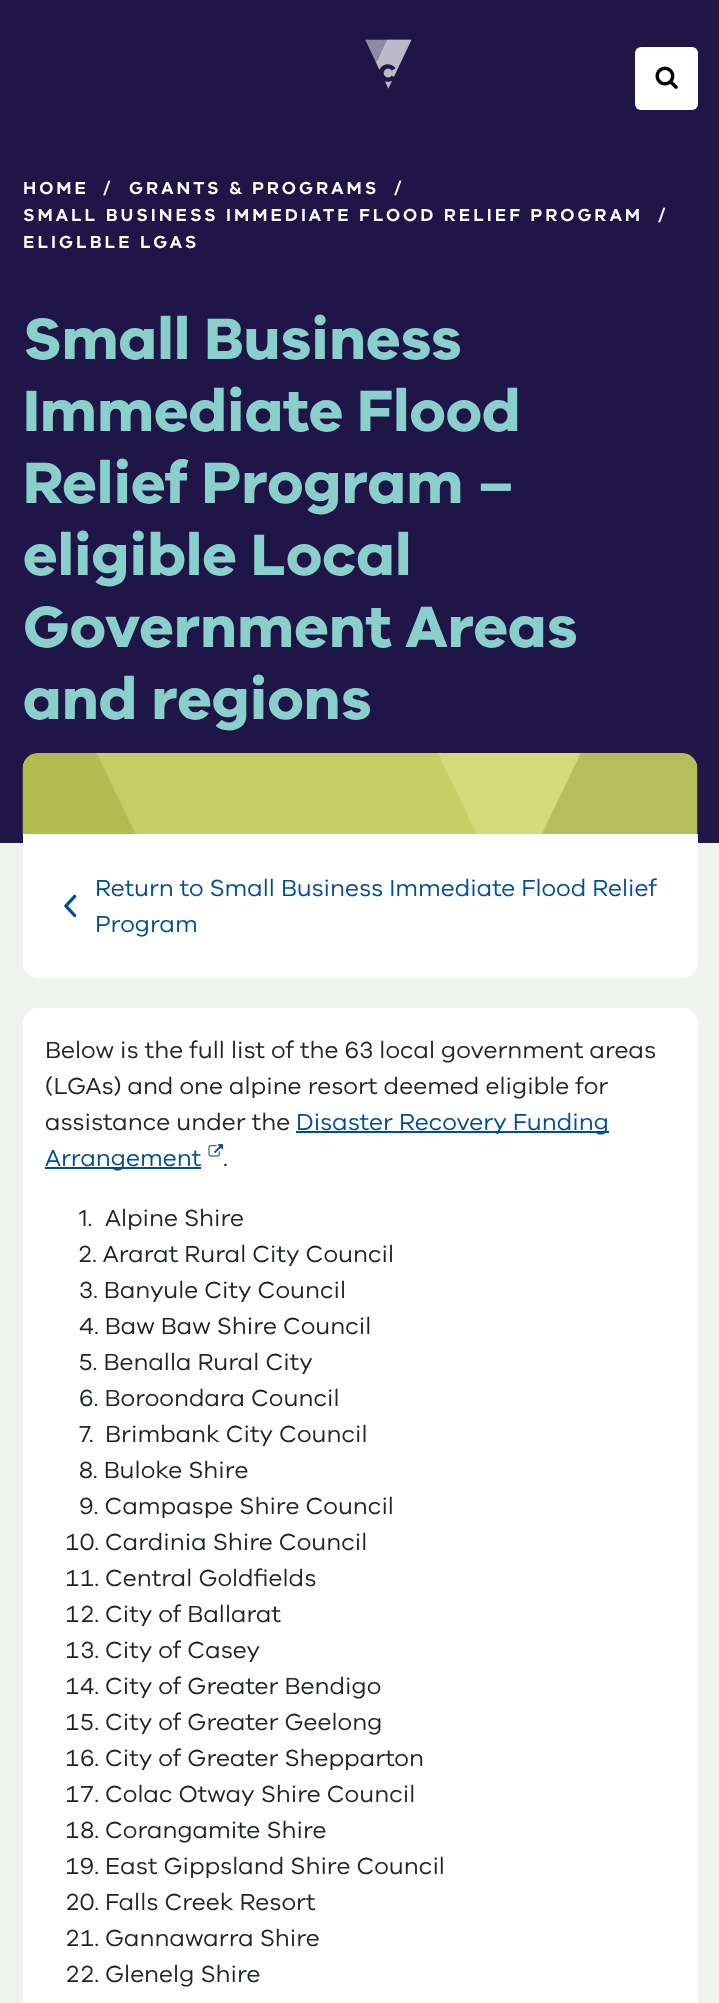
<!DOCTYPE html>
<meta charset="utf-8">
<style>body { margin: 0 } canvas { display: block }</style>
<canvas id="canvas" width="719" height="2003"></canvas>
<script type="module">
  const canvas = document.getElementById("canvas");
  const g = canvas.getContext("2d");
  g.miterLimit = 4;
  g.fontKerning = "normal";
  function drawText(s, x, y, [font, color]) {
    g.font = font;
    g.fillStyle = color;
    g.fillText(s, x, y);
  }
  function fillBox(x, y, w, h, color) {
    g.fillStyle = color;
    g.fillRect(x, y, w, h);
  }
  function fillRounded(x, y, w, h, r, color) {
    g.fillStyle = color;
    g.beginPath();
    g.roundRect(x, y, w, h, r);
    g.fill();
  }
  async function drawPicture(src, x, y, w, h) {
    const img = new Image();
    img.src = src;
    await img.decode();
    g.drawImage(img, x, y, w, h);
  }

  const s1 = ["600 18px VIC", "#FFFFFF"];
  const s2 = ["bold 60px VIC", "#89D0CD"];
  const s3 = ["24px VIC", "#004C97"];
  const s4 = ["24px VIC", "#212529"];
  const s5 = ["24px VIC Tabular", "#212529"];

  fillBox(0, 0, 719, 2003, "#F0F2F0");
  fillBox(0, 0, 719, 843, "#201547");
  await drawPicture("pic1.png", 365, 39, 47, 50);
  fillRounded(635, 47, 63, 63, 6, "#FFFFFF");
  await drawPicture("pic2.png", 655, 66, 23, 23);
  g.letterSpacing = "3px";
  drawText("HOME", 23, 194, s1);
  drawText("/", 103, 194, s1);
  drawText("GRANTS & PROGRAMS", 129, 194, s1);
  drawText("/", 394, 194, s1);
  drawText("SMALL BUSINESS IMMEDIATE FLOOD RELIEF PROGRAM", 23, 221, s1);
  drawText("/", 658, 221, s1);
  drawText("ELIGLBLE LGAS", 23, 248, s1);
  g.letterSpacing = "0px";
  drawText("Small Business", 23, 359, s2);
  drawText("Immediate Flood", 23, 431, s2);
  drawText("Relief Program –", 23, 503, s2);
  drawText("eligible Local", 23, 575, s2);
  drawText("Government Areas", 23, 647, s2);
  drawText("and regions", 23, 719, s2);
  await drawPicture("pic3.png", 22, 753, 676, 81);
  g.fillStyle = "#FFFFFF";
  g.beginPath();
  g.roundRect(23, 834, 675, 144, [0, 0, 15, 15]);
  g.fill();
  await drawPicture("pic4.png", 64, 894, 13, 24);
  drawText("Return to Small Business Immediate Flood Relief", 95, 896, s3);
  drawText("Program", 95, 932, s3);
  fillRounded(23, 1008, 675, 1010, 15, "#FFFFFF");
  drawText("Below is the full list of the 63 local government areas", 45, 1058, s4);
  drawText("(LGAs) and one alpine resort deemed eligible for", 45, 1094, s4);
  drawText("assistance under the", 45, 1130, s4);
  fillBox(296, 1131, 313, 2, "#004C97");
  drawText("Disaster Recovery Funding", 296, 1130, s3);
  fillBox(45, 1167, 156, 2, "#004C97");
  drawText("Arrangement", 45, 1166, s3);
  await drawPicture("pic5.png", 208, 1144, 15, 13);
  drawText(".", 223, 1166, s4);
  drawText("1.", 79, 1226, s4);
  drawText("Alpine Shire", 105, 1226, s4);
  drawText("2. Ararat Rural City Council", 79, 1262, s4);
  drawText("3. Banyule City Council", 79, 1298, s4);
  drawText("4. Baw Baw Shire Council", 79, 1334, s4);
  drawText("5. Benalla Rural City", 79, 1370, s4);
  drawText("6. Boroondara Council", 79, 1406, s4);
  drawText("7.", 79, 1442, s4);
  drawText("Brimbank City Council", 105, 1442, s4);
  drawText("8. Buloke Shire", 79, 1478, s4);
  drawText("9. Campaspe Shire Council", 79, 1514, s4);
  drawText("10.", 65, 1550, s5);
  drawText("Cardinia Shire Council", 105, 1550, s4);
  drawText("11.", 65, 1586, s5);
  drawText("Central Goldfields", 105, 1586, s4);
  drawText("12.", 65, 1622, s5);
  drawText("City of Ballarat", 105, 1622, s4);
  drawText("13.", 65, 1658, s5);
  drawText("City of Casey", 105, 1658, s4);
  drawText("14.", 65, 1694, s5);
  drawText("City of Greater Bendigo", 105, 1694, s4);
  drawText("15.", 65, 1730, s5);
  drawText("City of Greater Geelong", 105, 1730, s4);
  drawText("16.", 65, 1766, s5);
  drawText("City of Greater Shepparton", 105, 1766, s4);
  drawText("17.", 65, 1802, s5);
  drawText("Colac Otway Shire Council", 105, 1802, s4);
  drawText("18.", 65, 1838, s5);
  drawText("Corangamite Shire", 105, 1838, s4);
  drawText("19.", 65, 1874, s5);
  drawText("East Gippsland Shire Council", 105, 1874, s4);
  drawText("20.", 65, 1910, s5);
  drawText("Falls Creek Resort", 105, 1910, s4);
  drawText("21.", 65, 1946, s5);
  drawText("Gannawarra Shire", 105, 1946, s4);
  drawText("22.", 65, 1982, s5);
  drawText("Glenelg Shire", 105, 1982, s4);
</script>
